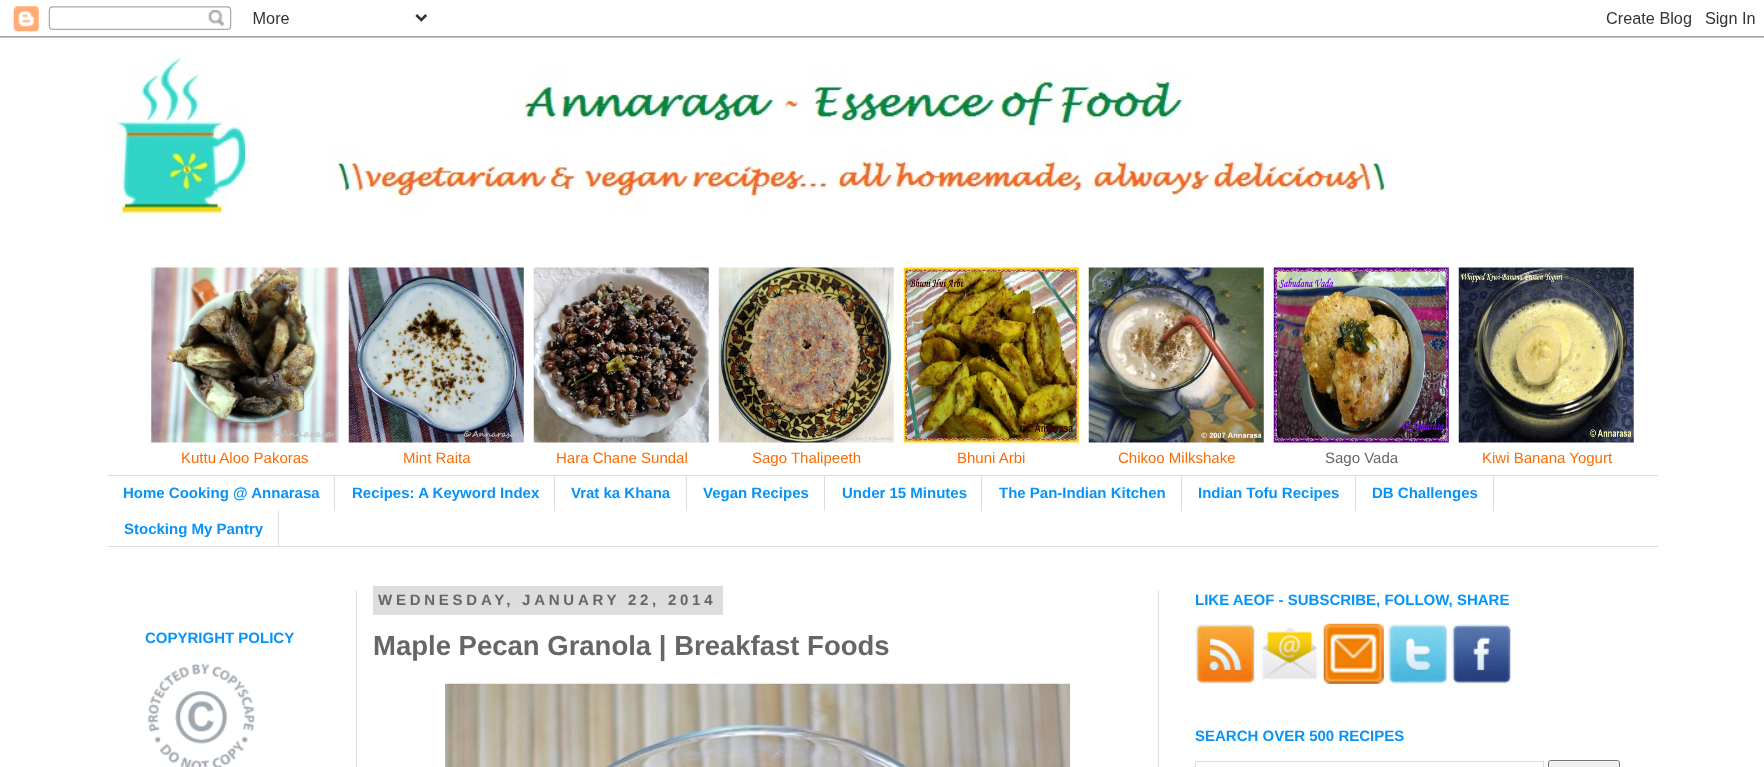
<!DOCTYPE html>
<meta charset="utf-8">
<style>body { margin: 0 } canvas { display: block }</style>
<canvas id="canvas" width="1764" height="767"></canvas>
<script type="module">
  const canvas = document.getElementById("canvas");
  const g = canvas.getContext("2d");
  g.miterLimit = 4;
  g.fontKerning = "normal";
  function drawText(s, x, y, [font, color]) {
    g.font = font;
    g.fillStyle = color;
    g.fillText(s, x, y);
  }
  function fillBox(x, y, w, h, color) {
    g.fillStyle = color;
    g.fillRect(x, y, w, h);
  }
  async function drawPicture(src, x, y, w, h) {
    const img = new Image();
    img.src = src;
    await img.decode();
    g.drawImage(img, x, y, w, h);
  }

  const s1 = ["15px Liberation Sans", "#FA6C06"];
  const s2 = ["15px Liberation Sans", "#666666"];
  const s3 = ["bold 15px Liberation Sans", "#0693FA"];
  const s4 = ["bold 15px Liberation Sans", "#666666"];
  const s5 = ["bold 27.5px Liberation Sans", "#666666"];

  fillBox(0, 0, 1764, 767, "#FFFFFF");
  await drawPicture("pic1.png", 0, 6, 1764, 32);
  await drawPicture("pic2.png", 108, 50, 1279, 173);
  await drawPicture("pic3.png", 151, 267, 188, 176);
  drawText("Kuttu Aloo Pakoras", 181, 463, s1);
  await drawPicture("pic4.png", 348, 267, 176, 176);
  drawText("Mint Raita", 403, 463, s1);
  await drawPicture("pic5.png", 533, 267, 176, 176);
  drawText("Hara Chane Sundal", 556, 463, s1);
  await drawPicture("pic6.png", 718, 267, 176, 176);
  drawText("Sago Thalipeeth", 752, 463, s1);
  await drawPicture("pic7.png", 903, 267, 176, 176);
  drawText("Bhuni Arbi", 957, 463, s1);
  await drawPicture("pic8.png", 1088, 267, 176, 176);
  drawText("Chikoo Milkshake", 1118, 463, s1);
  await drawPicture("pic9.png", 1273, 267, 176, 176);
  drawText("Sago Vada", 1325, 463, s2);
  await drawPicture("pic10.png", 1458, 267, 176, 176);
  drawText("Kiwi Banana Yogurt", 1482, 463, s1);
  fillBox(108, 475, 1550, 1, "#DDDDDD");
  fillBox(108, 546, 1550, 1, "#DDDDDD");
  fillBox(334, 476, 1, 35, "#DDDDDD");
  drawText("Home Cooking @ Annarasa", 123, 498, s3);
  fillBox(554, 476, 1, 35, "#DDDDDD");
  drawText("Recipes: A Keyword Index", 352, 498, s3);
  fillBox(686, 476, 1, 35, "#DDDDDD");
  drawText("Vrat ka Khana", 571, 498, s3);
  fillBox(824, 476, 1, 35, "#DDDDDD");
  drawText("Vegan Recipes", 703, 498, s3);
  fillBox(981, 476, 1, 35, "#DDDDDD");
  drawText("Under 15 Minutes", 842, 498, s3);
  fillBox(1181, 476, 1, 35, "#DDDDDD");
  drawText("The Pan-Indian Kitchen", 999, 498, s3);
  fillBox(1355, 476, 1, 35, "#DDDDDD");
  drawText("Indian Tofu Recipes", 1198, 498, s3);
  fillBox(1493, 476, 1, 35, "#DDDDDD");
  drawText("DB Challenges", 1372, 498, s3);
  fillBox(278, 511, 1, 35, "#DDDDDD");
  drawText("Stocking My Pantry", 124, 534, s3);
  fillBox(356, 591, 1, 176, "#DDDDDD");
  fillBox(1158, 591, 1, 176, "#DDDDDD");
  drawText("COPYRIGHT POLICY", 145, 643, s3);
  await drawPicture("pic11.png", 147, 663, 108, 104);
  fillBox(373, 586, 350, 29, "#DDDDDD");
  g.letterSpacing = "3.75px";
  drawText("WEDNESDAY, JANUARY 22, 2014", 378, 605, s4);
  g.letterSpacing = "0px";
  drawText("Maple Pecan Granola | Breakfast Foods", 373, 655, s5);
  await drawPicture("pic12.png", 445, 683, 625, 84);
  drawText("LIKE AEOF - SUBSCRIBE, FOLLOW, SHARE", 1195, 605, s3);
  await drawPicture("pic13.png", 1195, 624, 60, 60);
  await drawPicture("pic14.png", 1262, 627, 56, 53);
  await drawPicture("pic15.png", 1323, 623, 61, 61);
  await drawPicture("pic16.png", 1387, 624, 61, 60);
  await drawPicture("pic17.png", 1451, 624, 61, 60);
  drawText("SEARCH OVER 500 RECIPES", 1195, 741, s3);
  g.strokeStyle = "#DDDDDD";
  g.strokeRect(1195.5, 761.5, 348, 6);
  g.fillStyle = "#EFEFEF";
  g.beginPath();
  g.roundRect(1548.5, 760.5, 71, 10, 2);
  g.fill();
  g.strokeStyle = "#767676";
  g.stroke();
</script>
